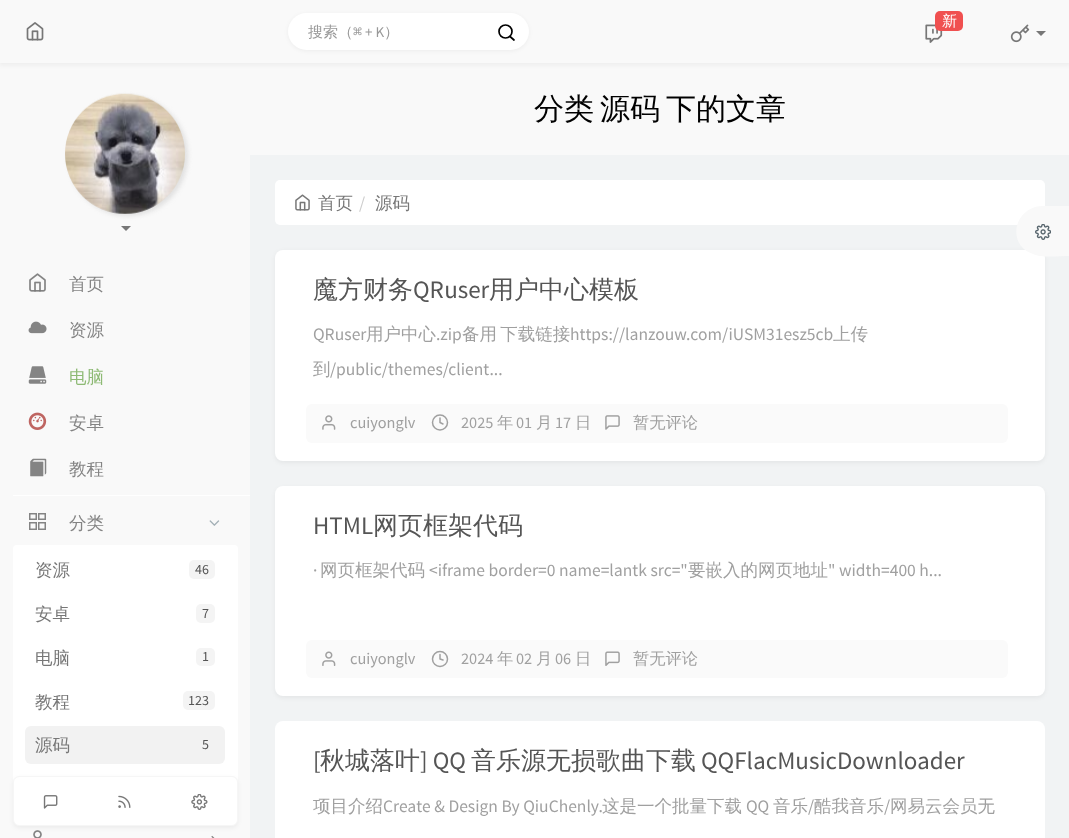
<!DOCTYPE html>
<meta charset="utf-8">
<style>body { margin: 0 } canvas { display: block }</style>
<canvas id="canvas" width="1069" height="838"></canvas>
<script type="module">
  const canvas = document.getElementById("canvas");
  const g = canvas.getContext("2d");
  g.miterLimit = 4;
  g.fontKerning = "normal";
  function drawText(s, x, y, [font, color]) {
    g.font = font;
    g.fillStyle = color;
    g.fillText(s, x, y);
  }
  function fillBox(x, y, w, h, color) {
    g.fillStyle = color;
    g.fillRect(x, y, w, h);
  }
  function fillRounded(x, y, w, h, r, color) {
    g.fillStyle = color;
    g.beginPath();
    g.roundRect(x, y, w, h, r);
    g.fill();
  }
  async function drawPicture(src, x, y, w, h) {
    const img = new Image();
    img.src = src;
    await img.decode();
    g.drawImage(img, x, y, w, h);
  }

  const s1 = ["500 15px WenQuanYi Zen Hei", "#FFFFFF"];
  const s2 = ["500 15px WenQuanYi Zen Hei", "#999999"];
  const s3 = ["15px DejaVu Sans Mono", "#999999"];
  const s4 = ["15px Source Sans Pro", "#999999"];
  const s5 = ["500 17.5px WenQuanYi Zen Hei", "#848484"];
  const s6 = ["500 17.5px WenQuanYi Zen Hei", "#8EBA75"];
  const s7 = ["500 17.5px WenQuanYi Zen Hei", "#777777"];
  const s8 = ["14px Source Sans Pro", "#555555"];
  const s9 = ["500 30px WenQuanYi Zen Hei", "#000000"];
  const s10 = ["17.5px Source Sans Pro", "#CCCCCC"];
  const s11 = ["500 25px WenQuanYi Zen Hei", "#555555"];
  const s12 = ["25px Source Sans Pro", "#555555"];
  const s13 = ["17.5px Source Sans Pro", "#A0A0A0"];
  const s14 = ["500 17.5px WenQuanYi Zen Hei", "#A0A0A0"];
  const s15 = ["16.25px Source Sans Pro", "#A0A0A0"];
  const s16 = ["500 16.25px WenQuanYi Zen Hei", "#A0A0A0"];

  fillBox(0, 0, 1069, 838, "#F9F9F9");
  g.fillStyle = "rgba(0, 0, 0, 0.05)";
  g.filter = "blur(2.5px)";
  g.beginPath();
  g.rect(-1, 0, 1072, 65);
  g.fill();
  g.filter = "none";
  fillBox(0, 0, 1069, 63, "#F9F9F9");
  await drawPicture("pic1.png", 26, 22, 18, 19);
  await drawPicture("pic2.png", 925, 24, 18, 19);
  fillRounded(935, 11, 28, 20, 5, "#F05050");
  drawText("新", 942, 26, s1);
  await drawPicture("pic3.png", 1010, 24, 20, 19);
  g.fillStyle = "#777777";
  g.beginPath();
  g.moveTo(1036, 31);
  g.lineTo(1046, 31);
  g.lineTo(1041, 36);
  g.closePath();
  g.fill();
  g.fillStyle = "rgba(0, 0, 0, 0.05)";
  g.filter = "blur(2px)";
  g.beginPath();
  g.roundRect(288, 14, 241, 37, 18.5);
  g.fill();
  g.filter = "none";
  fillRounded(288, 13, 241, 37, 18.5, "#FFFFFF");
  g.save();
  g.beginPath();
  g.rect(308, 23, 152, 21);
  g.clip();
  drawText("搜索（", 308, 37, s2);
  g.restore();
  drawText("⌘", 353, 37, s3);
  drawText("+ K", 365, 37, s4);
  drawText("）", 384, 37, s2);
  g.beginPath();
  g.arc(505.5, 31.5, 6.5, 0, Math.PI * 2);
  g.strokeStyle = "#000000";
  g.lineWidth = 1.7;
  g.stroke();
  g.beginPath();
  g.moveTo(514, 40);
  g.lineTo(510, 36.5);
  g.lineCap = "round";
  g.lineJoin = "round";
  g.stroke();
  g.fillStyle = "#E1E1E1";
  g.filter = "blur(2px)";
  g.beginPath();
  g.roundRect(68, 96, 120, 120, 60);
  g.fill();
  g.filter = "none";
  await drawPicture("pic4.png", 65, 93, 120, 121);
  g.fillStyle = "#777777";
  g.beginPath();
  g.moveTo(121, 226);
  g.lineTo(131, 226);
  g.lineTo(126, 231);
  g.closePath();
  g.fill();
  await drawPicture("pic5.png", 29, 273, 17, 19);
  drawText("首页", 69, 290, s5);
  await drawPicture("pic6.png", 28, 321, 19, 13);
  drawText("资源", 69, 336, s5);
  await drawPicture("pic7.png", 28, 366, 19, 18);
  drawText("电脑", 69, 383, s6);
  await drawPicture("pic8.png", 28, 412, 19, 18);
  drawText("安卓", 69, 429, s5);
  await drawPicture("pic9.png", 30, 458, 17, 19);
  drawText("教程", 69, 475, s5);
  g.fillStyle = "#FFFFFF";
  g.beginPath();
  g.roundRect(13, 495, 237, 1, [0.5, 0, 0, 0.5]);
  g.fill();
  await drawPicture("pic10.png", 29, 513, 17, 17);
  drawText("分类", 69, 529, s5);
  await drawPicture("pic11.png", 209, 520, 11, 6);
  fillRounded(13, 545, 225, 269, 4, "#FFFFFF");
  drawText("资源", 35, 576, s7);
  fillRounded(189, 560, 26, 19, 5, "#F4F4F4");
  drawText("46", 195, 574, s8);
  drawText("安卓", 35, 620, s7);
  fillRounded(196, 604, 19, 19, 5, "#F4F4F4");
  drawText("7", 202, 618, s8);
  drawText("电脑", 35, 664, s7);
  fillRounded(196, 648, 19, 18, 5, "#F4F4F4");
  drawText("1", 202, 661, s8);
  drawText("教程", 35, 708, s7);
  fillRounded(183, 691, 32, 19, 5, "#F4F4F4");
  drawText("123", 188, 705, s8);
  fillRounded(25, 726, 200, 38, 6, "#F2F2F2");
  drawText("源码", 35, 751, s7);
  drawText("5", 202, 749, s8);
  await drawPicture("pic12.png", 33, 830, 9, 8);
  await drawPicture("pic13.png", 211, 835, 4, 3);
  g.fillStyle = "rgba(0, 0, 0, 0.05)";
  g.filter = "blur(2px)";
  g.beginPath();
  g.roundRect(13, 778, 225, 50, 6);
  g.fill();
  g.filter = "none";
  g.fillStyle = "#FFFFFF";
  g.beginPath();
  g.roundRect(13.5, 776.5, 224, 49, 5.5);
  g.fill();
  g.strokeStyle = "#F6F6F6";
  g.lineWidth = 1;
  g.lineJoin = "miter";
  g.stroke();
  await drawPicture("pic14.png", 43, 795, 15, 14);
  await drawPicture("pic15.png", 118, 795, 13, 13);
  await drawPicture("pic16.png", 191, 794, 17, 16);
  fillBox(250, 155, 819, 683, "#F1F3F4");
  g.wordSpacing = "-3px";
  drawText("分类 源码 下的文章", 534, 119, s9);
  fillRounded(275, 180, 770, 45, 5, "#FFFFFF");
  await drawPicture("pic17.png", 295, 194, 15, 17);
  g.wordSpacing = "0px";
  drawText("首页", 318, 209, s7);
  drawText("/", 359, 209, s10);
  drawText("源码", 375, 209, s7);
  g.fillStyle = "rgba(0, 0, 0, 0.05)";
  g.filter = "blur(2px)";
  g.beginPath();
  g.roundRect(275, 251, 770, 212, 8);
  g.fill();
  g.filter = "none";
  fillRounded(275, 250, 770, 211, 8, "#FFFFFF");
  drawText("魔方财务", 313, 298, s11);
  drawText("QRuser", 413, 298, s12);
  drawText("用户中心模板", 489, 298, s11);
  drawText("QRuser", 313, 340, s13);
  drawText("用户中心", 366, 340, s14);
  drawText(".zip", 436, 340, s13);
  g.wordSpacing = "-2px";
  drawText("备用 下载链接", 462, 340, s14);
  g.wordSpacing = "0px";
  drawText("https://lanzouw.com/iUSM31esz5cb", 570, 340, s13);
  drawText("上传", 833, 340, s14);
  drawText("到", 313, 375, s14);
  drawText("/public/themes/client...", 330, 375, s13);
  fillRounded(306, 404, 702, 39, 6, "#FAFAFA");
  await drawPicture("pic18.png", 322, 415, 14, 15);
  drawText("cuiyonglv", 350, 428, s15);
  g.beginPath();
  g.arc(440, 422.5, 7.5, 0, Math.PI * 2);
  g.strokeStyle = "#A0A0A0";
  g.lineWidth = 1.5;
  g.stroke();
  drawText("年", 497, 428, s16);
  drawText("月", 536, 428, s16);
  drawText("日", 575, 428, s16);
  g.beginPath();
  g.moveTo(440, 418);
  g.lineTo(440, 422.5);
  g.lineTo(443, 424);
  g.lineJoin = "round";
  g.stroke();
  drawText("2025", 461, 428, s15);
  drawText("01", 516, 428, s15);
  drawText("17", 555, 428, s15);
  await drawPicture("pic19.png", 605, 415, 15, 15);
  drawText("暂无评论", 633, 428, s16);
  g.fillStyle = "rgba(0, 0, 0, 0.05)";
  g.filter = "blur(2px)";
  g.beginPath();
  g.roundRect(275, 488, 770, 210, 8);
  g.fill();
  g.filter = "none";
  fillRounded(275, 486, 770, 210, 8, "#FFFFFF");
  drawText("HTML", 313, 534, s12);
  drawText("网页框架代码", 373, 534, s11);
  drawText("·", 313, 576, s13);
  drawText("网页框架代码", 320, 576, s14);
  drawText("<iframe border=0 name=lantk src=\"", 429, 576, s13);
  drawText("要嵌入的网页地址", 688, 576, s14);
  drawText("\" width=400 h...", 828, 576, s13);
  fillRounded(306, 640, 702, 38, 6, "#FAFAFA");
  await drawPicture("pic20.png", 322, 651, 14, 15);
  drawText("cuiyonglv", 350, 664, s15);
  g.beginPath();
  g.arc(440, 659, 7.5, 0, Math.PI * 2);
  g.stroke();
  drawText("年", 497, 664, s16);
  drawText("月", 536, 664, s16);
  drawText("日", 575, 664, s16);
  g.beginPath();
  g.moveTo(440, 654.5);
  g.lineTo(440, 659);
  g.lineTo(443, 660);
  g.stroke();
  drawText("2024", 461, 664, s15);
  drawText("02", 516, 664, s15);
  drawText("06", 555, 664, s15);
  await drawPicture("pic21.png", 605, 651, 15, 15);
  drawText("暂无评论", 633, 664, s16);
  fillRounded(275, 721, 770, 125, 8, "#FFFFFF");
  drawText("[", 313, 769, s12);
  drawText("秋城落叶", 320, 769, s11);
  drawText("] QQ", 420, 769, s12);
  drawText("音乐源无损歌曲下载", 471, 769, s11);
  drawText("QQFlacMusicDownloader", 701, 769, s12);
  drawText("项目介绍", 313, 812, s14);
  drawText("Create & Design By QiuChenly.", 383, 812, s13);
  drawText("这是一个批量下载", 602, 812, s14);
  drawText("QQ", 746, 812, s13);
  drawText("音乐", 773, 812, s14);
  drawText("/", 808, 812, s13);
  drawText("酷我音乐", 814, 812, s14);
  drawText("/", 884, 812, s13);
  drawText("网易云会员无", 890, 812, s14);
  g.fillStyle = "#F9F9F9";
  g.beginPath();
  g.moveTo(1043, 206);
  g.lineTo(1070, 206);
  g.lineTo(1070, 256);
  g.bezierCurveTo(1060, 256, 1041, 258, 1033, 254);
  g.bezierCurveTo(1005, 244, 1015, 206, 1043, 206);
  g.closePath();
  g.fill();
  await drawPicture("pic22.png", 1035, 224, 16, 16);
</script>
